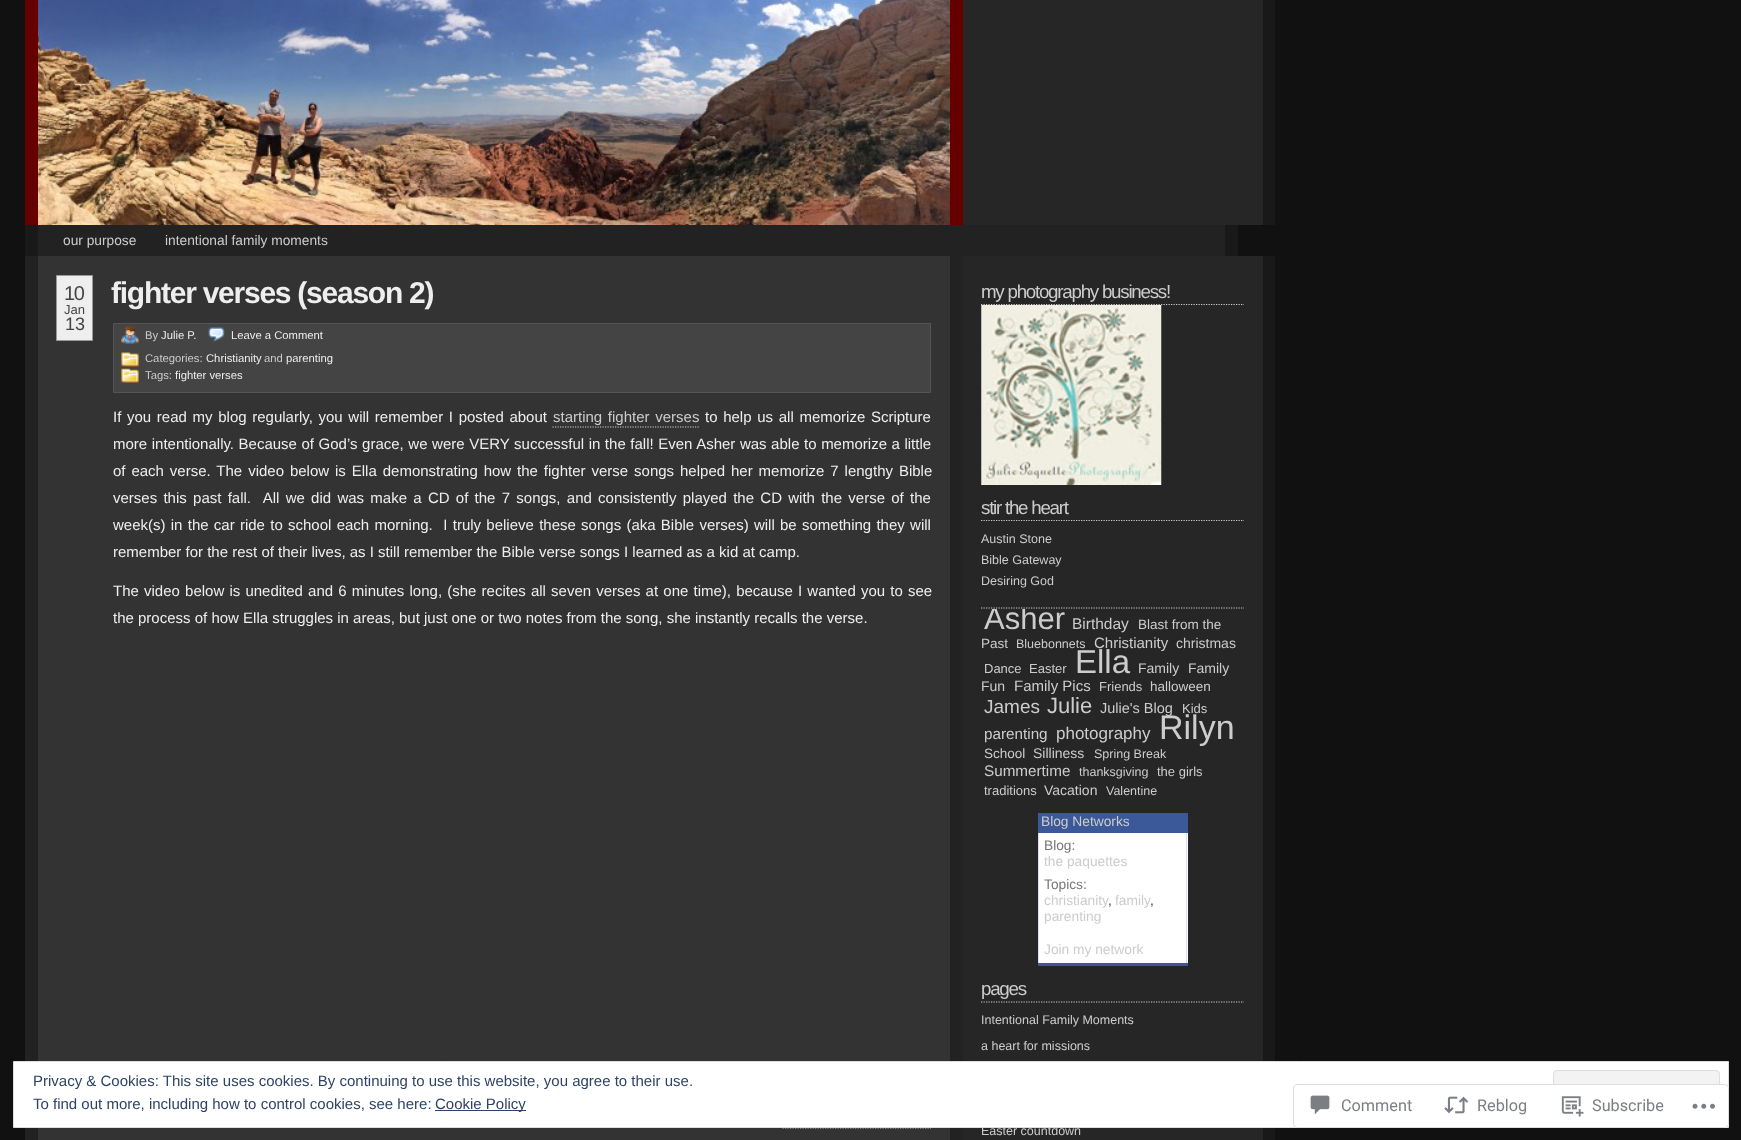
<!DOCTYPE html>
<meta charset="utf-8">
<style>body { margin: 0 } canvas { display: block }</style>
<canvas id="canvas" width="1741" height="1140"></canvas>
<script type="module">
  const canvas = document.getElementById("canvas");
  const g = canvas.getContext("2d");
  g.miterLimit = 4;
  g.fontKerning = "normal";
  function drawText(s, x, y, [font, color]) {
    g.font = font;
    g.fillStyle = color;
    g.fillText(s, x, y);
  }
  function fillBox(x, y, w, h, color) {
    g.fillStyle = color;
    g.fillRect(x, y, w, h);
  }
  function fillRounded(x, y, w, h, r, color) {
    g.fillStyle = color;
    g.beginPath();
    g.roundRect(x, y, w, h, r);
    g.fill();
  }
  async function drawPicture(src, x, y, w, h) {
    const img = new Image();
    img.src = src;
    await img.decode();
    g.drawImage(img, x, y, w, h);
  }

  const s1 = ["13.75px Liberation Sans", "#CCCCCC"];
  const s2 = ["20px Liberation Sans", "#444444"];
  const s3 = ["13px Liberation Sans", "#444444"];
  const s4 = ["18px Liberation Sans", "#444444"];
  const s5 = ["bold 30px Liberation Sans", "#EEEEEE"];
  const s6 = ["11.25px Liberation Sans", "#CCCCCC"];
  const s7 = ["11.25px Liberation Sans", "#EEEEEE"];
  const s8 = ["15px Liberation Sans", "#EEEEEE"];
  const s9 = ["15px Liberation Sans", "#CCCCCC"];
  const s10 = ["18.75px Liberation Sans", "#CCCCCC"];
  const s11 = ["12.5px Liberation Sans", "#CCCCCC"];
  const s12 = ["31px Liberation Sans", "#CCCCCC"];
  const s13 = ["15.5px Liberation Sans", "#CCCCCC"];
  const s14 = ["13.5px Liberation Sans", "#CCCCCC"];
  const s15 = ["14px Liberation Sans", "#CCCCCC"];
  const s16 = ["13px Liberation Sans", "#CCCCCC"];
  const s17 = ["33px Liberation Sans", "#CCCCCC"];
  const s18 = ["19px Liberation Sans", "#CCCCCC"];
  const s19 = ["22px Liberation Sans", "#CCCCCC"];
  const s20 = ["14.5px Liberation Sans", "#CCCCCC"];
  const s21 = ["15.25px Liberation Sans", "#CCCCCC"];
  const s22 = ["17px Liberation Sans", "#CCCCCC"];
  const s23 = ["34px Liberation Sans", "#CCCCCC"];
  const s24 = ["13.75px Liberation Sans", "#777777"];
  const s25 = ["13.75px Liberation Sans", "#444444"];
  const s26 = ["15px Liberation Sans", "#2E4467"];
  const s27 = ["16.25px Roboto", "#7B7F85"];

  fillBox(0, 0, 1741, 1140, "#111111");
  await drawPicture("pic1.png", 38, 0, 912, 225);
  fillBox(950, 0, 13, 225, "#660000");
  fillBox(25, 0, 13, 225, "#660000");
  fillBox(963, 0, 300, 225, "#262626");
  fillBox(1263, 0, 12, 225, "#191919");
  fillBox(38, 225, 1187, 31, "#222222");
  fillBox(1225, 225, 13, 31, "#191919");
  fillBox(25, 225, 13, 31, "#191919");
  drawText("our purpose", 63, 245, s1);
  drawText("intentional family moments", 165, 245, s1);
  fillBox(38, 256, 912, 884, "#333333");
  fillBox(950, 256, 13, 884, "#222222");
  fillBox(25, 256, 13, 884, "#222222");
  g.fillStyle = "#EEEEEE";
  g.beginPath();
  g.rect(56.5, 275.5, 36, 65);
  g.fill();
  g.strokeStyle = "#999999";
  g.stroke();
  g.letterSpacing = "-1.25px";
  drawText("10", 64, 300, s2);
  g.letterSpacing = "0px";
  drawText("Jan", 64, 314, s3);
  drawText("13", 65, 330, s4);
  g.letterSpacing = "-1.25px";
  drawText("fighter verses (season 2)", 111, 303, s5);
  g.fillStyle = "#444444";
  g.beginPath();
  g.rect(113.5, 323.5, 817, 69);
  g.fill();
  g.strokeStyle = "#555555";
  g.stroke();
  await drawPicture("pic2.png", 121, 326, 18, 18);
  g.letterSpacing = "0px";
  drawText("By", 145, 339, s6);
  drawText("Julie P.", 161, 339, s7);
  await drawPicture("pic3.png", 207, 327, 18, 15);
  drawText("Leave a Comment", 231, 339, s7);
  await drawPicture("pic4.png", 121, 352, 18, 15);
  drawText("Categories:", 145, 362, s6);
  drawText("Christianity", 206, 362, s7);
  drawText("and", 264, 362, s6);
  drawText("parenting", 286, 362, s7);
  await drawPicture("pic5.png", 121, 368, 18, 15);
  drawText("Tags:", 145, 379, s6);
  drawText("fighter verses", 175, 379, s7);
  g.wordSpacing = "1.5px";
  drawText("If you read my blog regularly, you will remember I posted about", 113, 422, s8);
  drawText("starting fighter verses", 553, 422, s9);
  g.beginPath();
  g.moveTo(552.5, 427);
  g.lineTo(699, 427);
  g.strokeStyle = "#CCCCCC";
  g.lineWidth = 1.2;
  g.setLineDash([1.25, 1.25]);
  g.stroke();
  drawText("to help us all memorize Scripture", 705, 422, s8);
  g.wordSpacing = "0.4px";
  drawText("more intentionally. Because of God’s grace, we were VERY successful in the fall! Even Asher was able to memorize a little", 113, 449, s8);
  g.wordSpacing = "1.75px";
  drawText("of each verse. The video below is Ella demonstrating how the fighter verse songs helped her memorize 7 lengthy Bible", 113, 476, s8);
  g.wordSpacing = "2.1px";
  drawText("verses this past fall.  All we did was make a CD of the 7 songs, and consistently played the CD with the verse of the", 113, 503, s8);
  g.wordSpacing = "1.1px";
  drawText("week(s) in the car ride to school each morning.  I truly believe these songs (aka Bible verses) will be something they will", 113, 530, s8);
  g.wordSpacing = "0px";
  drawText("remember for the rest of their lives, as I still remember the Bible verse songs I learned as a kid at camp.", 113, 557, s8);
  g.wordSpacing = "1px";
  drawText("The video below is unedited and 6 minutes long, (she recites all seven verses at one time), because I wanted you to see", 113, 596, s8);
  g.wordSpacing = "0px";
  drawText("the process of how Ella struggles in areas, but just one or two notes from the song, she instantly recalls the verse.", 113, 623, s8);
  g.beginPath();
  g.moveTo(782.5, 1128);
  g.lineTo(931, 1128);
  g.stroke();
  fillBox(963, 256, 300, 884, "#262626");
  fillBox(1263, 256, 12, 884, "#191919");
  g.beginPath();
  g.moveTo(981, 304.5);
  g.lineTo(1244, 304.5);
  g.stroke();
  g.letterSpacing = "-1.25px";
  drawText("my photography business!", 981, 298, s10);
  await drawPicture("pic6.png", 981, 305, 181, 180);
  g.beginPath();
  g.moveTo(981, 520.5);
  g.lineTo(1244, 520.5);
  g.stroke();
  drawText("stir the heart", 981, 514, s10);
  g.letterSpacing = "0px";
  drawText("Austin Stone", 981, 543, s11);
  drawText("Bible Gateway", 981, 564, s11);
  drawText("Desiring God", 981, 585, s11);
  g.beginPath();
  g.moveTo(981, 608);
  g.lineTo(1244, 608);
  g.stroke();
  g.save();
  g.beginPath();
  g.rect(981, 609, 263, 191);
  g.clip();
  drawText("Asher", 984, 629, s12);
  g.restore();
  drawText("Birthday", 1072, 629, s13);
  drawText("Blast from the", 1138, 629, s14);
  drawText("Past", 981, 648, s14);
  drawText("Bluebonnets", 1016, 648, s11);
  drawText("Christianity", 1094, 648, s9);
  drawText("christmas", 1176, 648, s15);
  drawText("Dance", 984, 673, s16);
  drawText("Easter", 1029, 673, s16);
  drawText("Ella", 1075, 673, s17);
  drawText("Family", 1138, 673, s15);
  drawText("Family", 1188, 673, s15);
  drawText("Fun", 981, 691, s15);
  drawText("Family Pics", 1014, 691, s9);
  drawText("Friends", 1099, 691, s16);
  drawText("halloween", 1150, 691, s14);
  drawText("James", 984, 713, s18);
  drawText("Julie", 1047, 713, s19);
  drawText("Julie's Blog", 1100, 713, s20);
  drawText("Kids", 1182, 713, s16);
  drawText("parenting", 984, 739, s21);
  drawText("photography", 1056, 739, s22);
  drawText("Rilyn", 1159, 739, s23);
  drawText("School", 984, 758, s14);
  drawText("Silliness", 1033, 758, s15);
  drawText("Spring Break", 1094, 758, s11);
  drawText("Summertime", 984, 776, s21);
  drawText("thanksgiving", 1079, 776, s11);
  drawText("the girls", 1157, 776, s16);
  drawText("traditions", 984, 795, s16);
  drawText("Vacation", 1044, 795, s15);
  drawText("Valentine", 1106, 795, s11);
  fillBox(1038, 813, 150, 153, "#3B5998");
  drawText("Blog Networks", 1041, 826, s1);
  fillBox(1039, 833, 149, 130, "#FFFFFF");
  fillBox(1186, 833, 1, 130, "#D8DFEA");
  fillBox(1038, 833, 1, 130, "#D8DFEA");
  drawText("Blog:", 1044, 850, s24);
  drawText("the paquettes", 1044, 866, s1);
  drawText("Topics:", 1044, 889, s24);
  drawText("christianity", 1044, 905, s1);
  drawText(",", 1108, 905, s25);
  drawText("family", 1115, 905, s1);
  drawText(",", 1150, 905, s25);
  drawText("parenting", 1044, 921, s1);
  drawText("Join my network", 1044, 954, s1);
  g.beginPath();
  g.moveTo(981, 1002);
  g.lineTo(1244, 1002);
  g.stroke();
  g.letterSpacing = "-1.25px";
  drawText("pages", 981, 995, s10);
  g.letterSpacing = "0px";
  drawText("Intentional Family Moments", 981, 1024, s11);
  drawText("a heart for missions", 981, 1050, s11);
  drawText("Easter countdown", 981, 1135, s11);
  g.fillStyle = "#FFFFFF";
  g.beginPath();
  g.rect(13.5, 1061.5, 1715, 66);
  g.fill();
  g.strokeStyle = "#DEDEDE";
  g.lineWidth = 1;
  g.setLineDash([]);
  g.stroke();
  drawText("Privacy & Cookies: This site uses cookies. By continuing to use this website, you agree to their use.", 33, 1086, s26);
  g.fillStyle = "#F3F3F3";
  g.beginPath();
  g.roundRect(1553.5, 1070.5, 166, 48, 3.5);
  g.fill();
  g.stroke();
  drawText("To find out more, including how to control cookies, see here:", 33, 1109, s26);
  fillBox(435, 1110, 91, 1, "#2E4467");
  drawText("Cookie Policy", 435, 1109, s26);
  fillRounded(1293, 1084, 436, 44, 4, "rgba(255, 255, 255, 0.98)");
  g.beginPath();
  g.roundRect(1293.5, 1084.5, 435, 43, 3.5);
  g.strokeStyle = "rgba(220, 220, 222, 0.98)";
  g.stroke();
  await drawPicture("pic7.png", 1310, 1095, 20, 20);
  drawText("Comment", 1341, 1111, s27);
  await drawPicture("pic8.png", 1444, 1096, 25, 18);
  drawText("Reblog", 1477, 1111, s27);
  await drawPicture("pic9.png", 1561, 1096, 23, 21);
  drawText("Subscribe", 1592, 1111, s27);
  await drawPicture("pic10.png", 1692, 1103, 23, 6);
</script>
